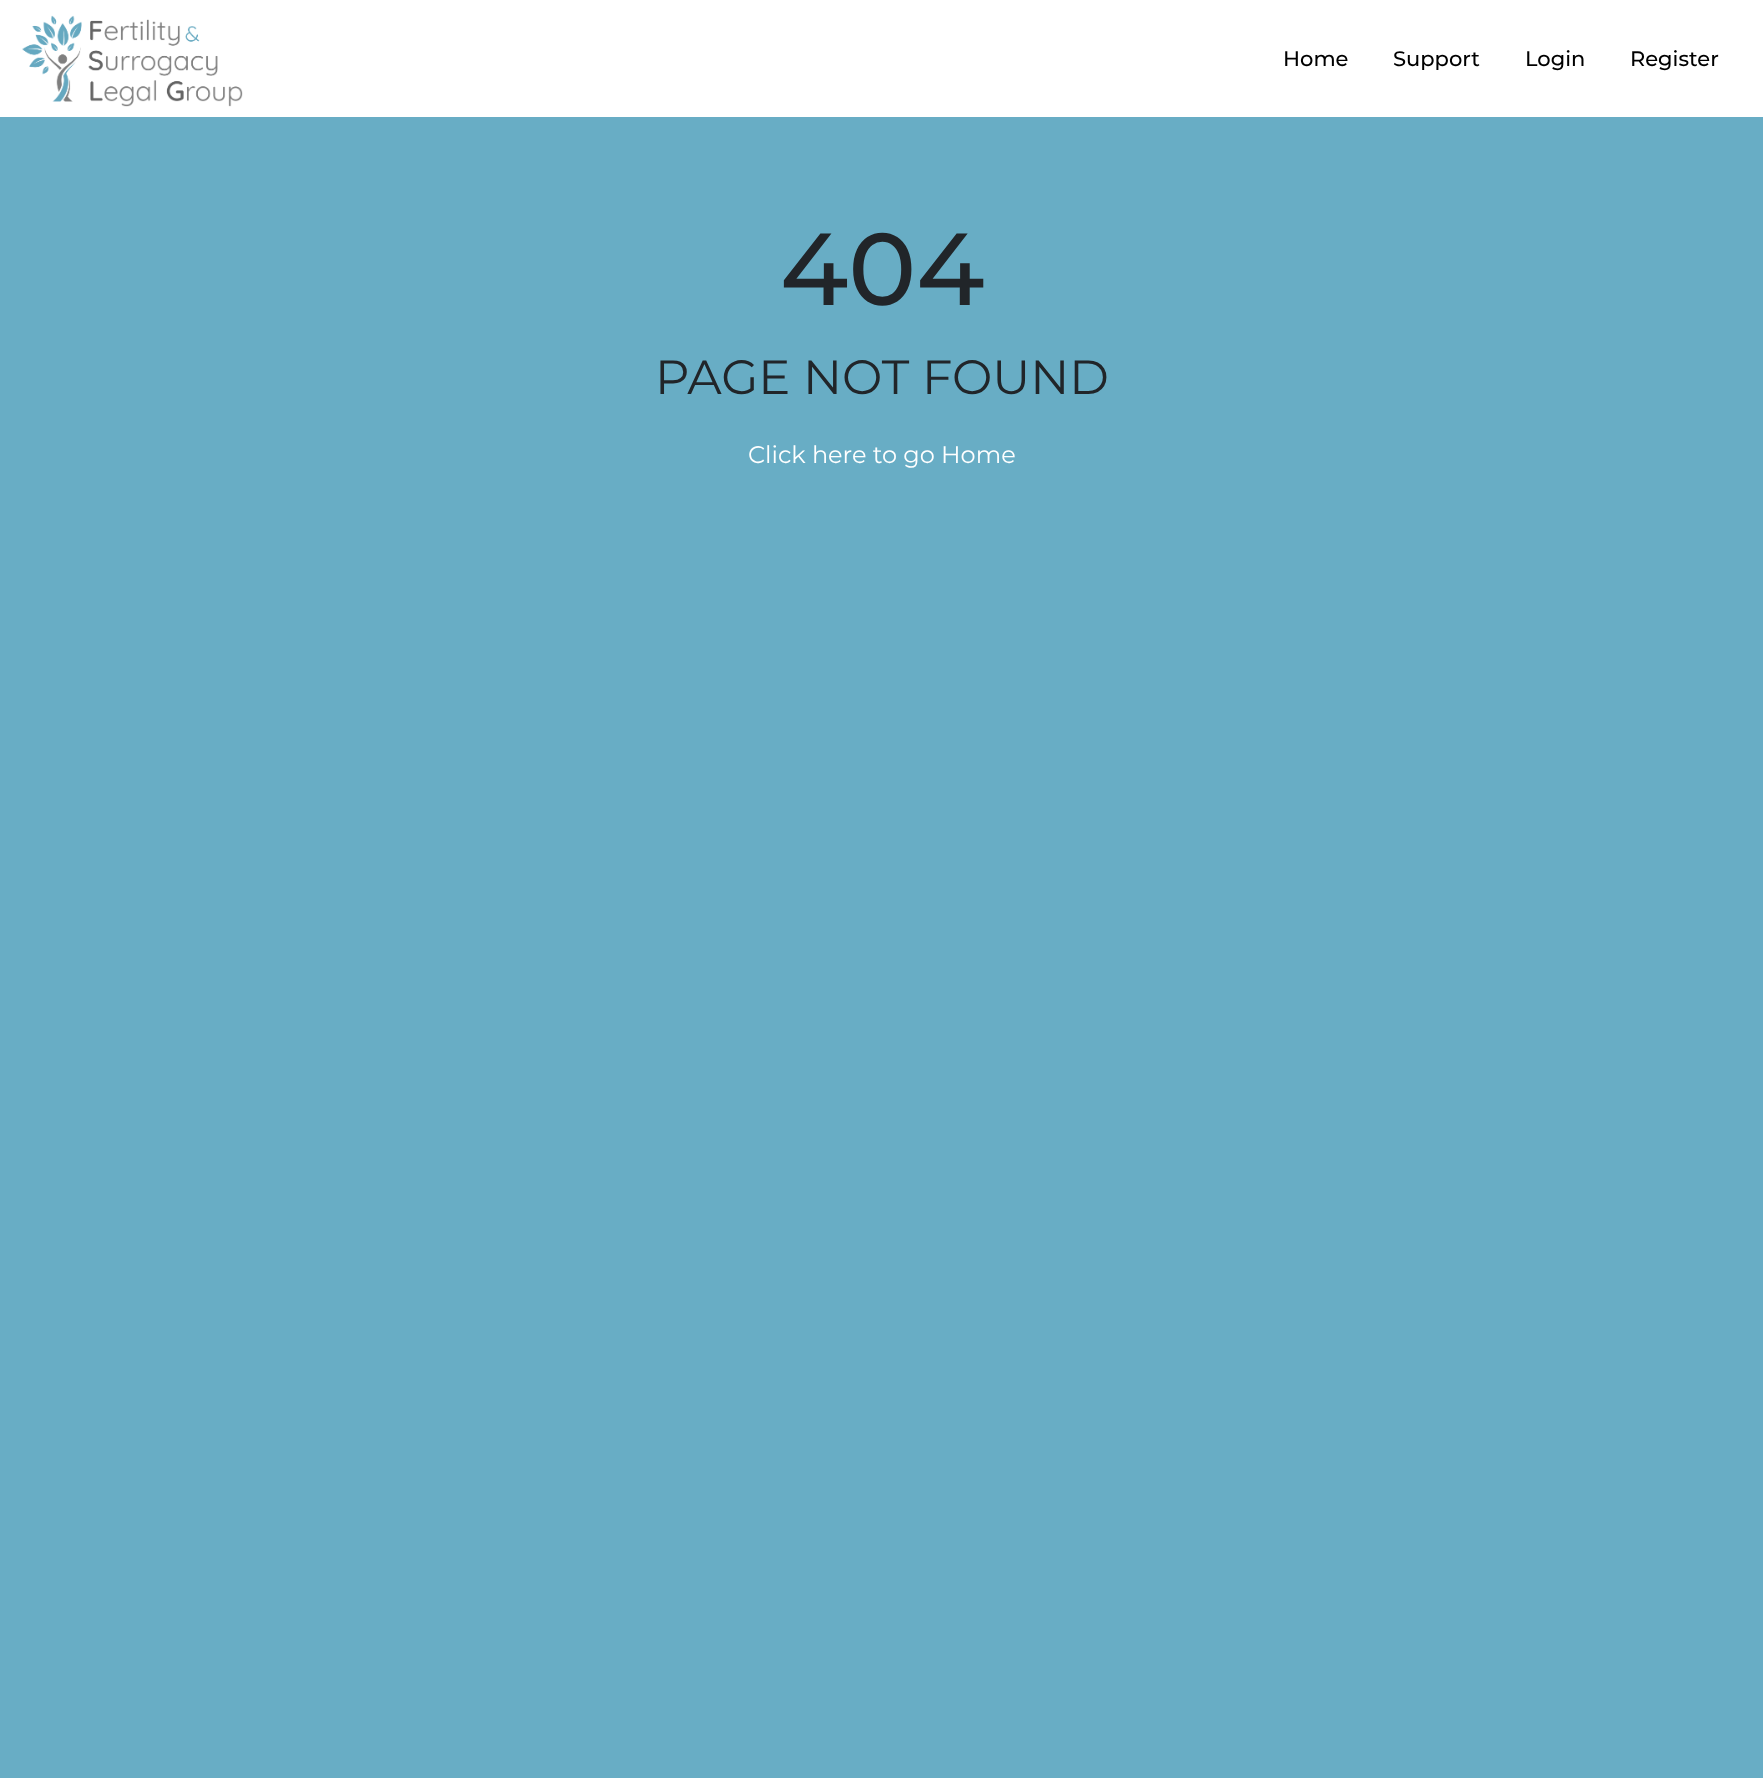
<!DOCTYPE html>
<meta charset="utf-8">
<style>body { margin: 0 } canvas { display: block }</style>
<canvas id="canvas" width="1763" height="1778"></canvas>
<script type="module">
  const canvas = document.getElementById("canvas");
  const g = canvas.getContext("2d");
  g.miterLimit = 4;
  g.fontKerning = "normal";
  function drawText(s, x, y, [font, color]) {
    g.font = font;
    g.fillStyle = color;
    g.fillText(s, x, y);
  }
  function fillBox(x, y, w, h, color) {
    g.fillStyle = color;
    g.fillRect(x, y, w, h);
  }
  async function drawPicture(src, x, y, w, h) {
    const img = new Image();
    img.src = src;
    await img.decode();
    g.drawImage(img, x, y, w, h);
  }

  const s1 = ["500 21px Montserrat", "#000000"];
  const s2 = ["500 102px Montserrat", "#212529"];
  const s3 = ["48px Montserrat", "#212529"];
  const s4 = ["24px Montserrat", "#FFFFFF"];

  fillBox(0, 0, 1763, 1778, "#68ADC5");
  fillBox(0, 0, 1763, 117, "#FFFFFF");
  await drawPicture("pic1.png", 22, 15, 221, 92);
  drawText("Home", 1283, 66, s1);
  drawText("Support", 1393, 66, s1);
  drawText("Login", 1525, 66, s1);
  drawText("Register", 1630, 66, s1);
  drawText("404", 780, 305, s2);
  drawText("PAGE NOT FOUND", 655, 394, s3);
  drawText("Click here to go Home", 748, 463, s4);
</script>
